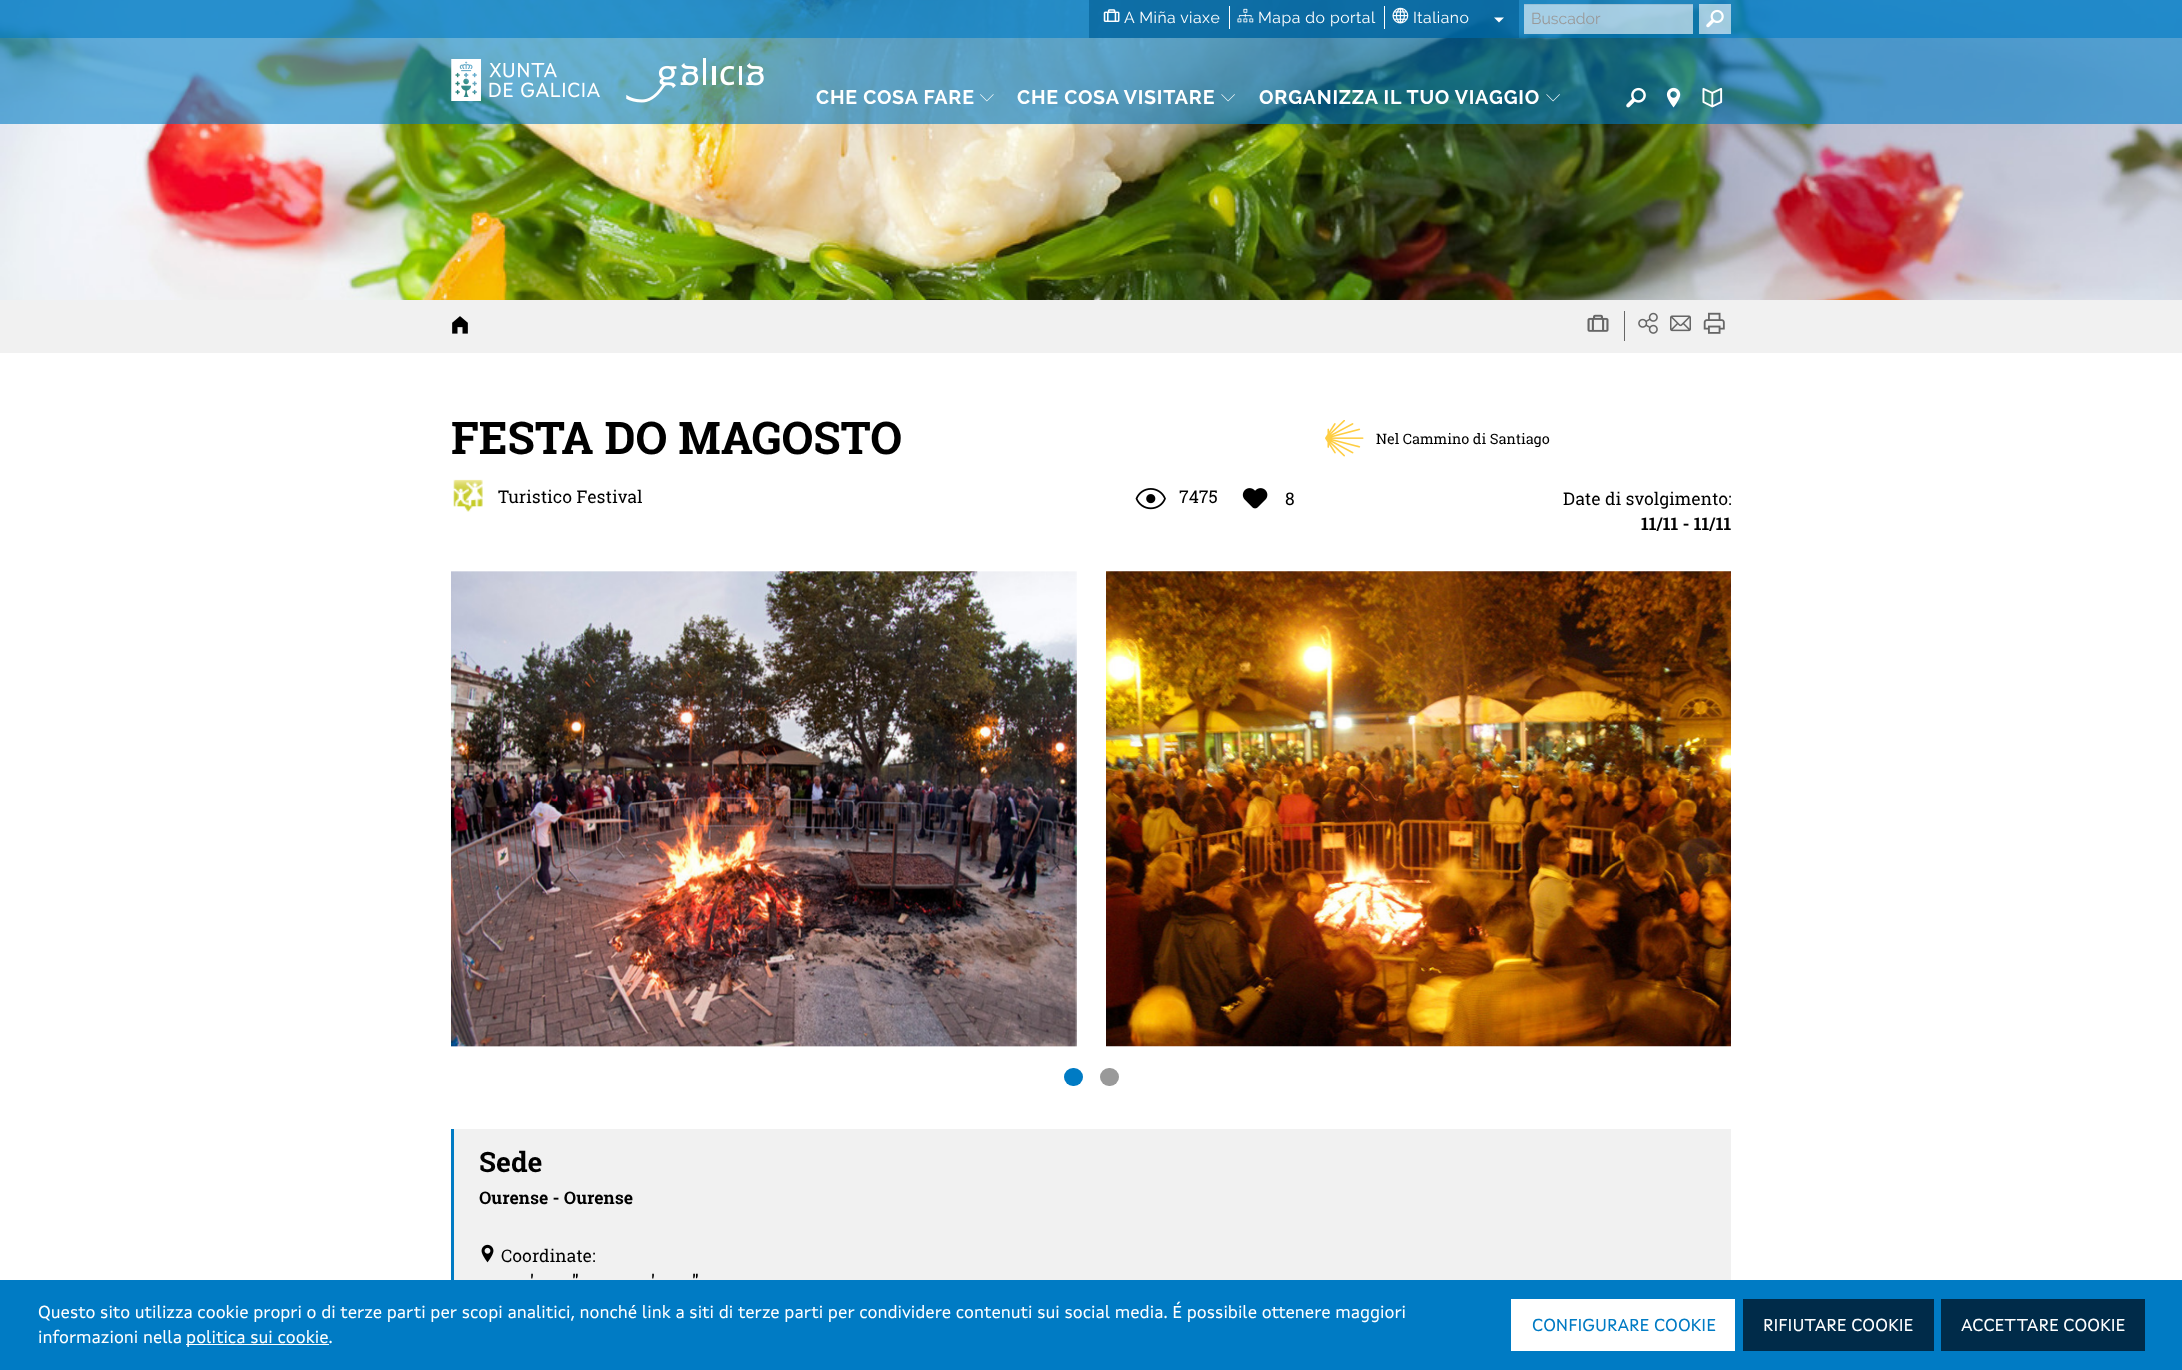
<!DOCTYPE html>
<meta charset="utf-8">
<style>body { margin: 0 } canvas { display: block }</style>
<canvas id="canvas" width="2182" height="1370"></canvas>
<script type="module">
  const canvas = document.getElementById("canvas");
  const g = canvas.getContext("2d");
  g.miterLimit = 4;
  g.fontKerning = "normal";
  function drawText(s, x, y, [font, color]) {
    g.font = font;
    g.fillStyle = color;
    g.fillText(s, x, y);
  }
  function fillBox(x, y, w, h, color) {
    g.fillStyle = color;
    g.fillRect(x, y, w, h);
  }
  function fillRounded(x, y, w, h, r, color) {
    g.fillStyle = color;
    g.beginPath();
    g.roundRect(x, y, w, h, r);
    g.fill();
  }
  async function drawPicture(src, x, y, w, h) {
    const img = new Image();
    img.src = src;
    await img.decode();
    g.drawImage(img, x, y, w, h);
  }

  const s1 = ["15.75px Raleway", "#FFFFFF"];
  const s2 = ["15.75px Raleway", "#999999"];
  const s3 = ["bold 19.6px Raleway", "#FFFFFF"];
  const s4 = ["bold 45px Roboto Slab", "#000000"];
  const s5 = ["17.5px Roboto Slab", "#000000"];
  const s6 = ["14.4px Roboto Slab", "#000000"];
  const s7 = ["bold 17.5px Roboto Slab", "#000000"];
  const s8 = ["bold 28px Roboto Slab", "#000000"];
  const s9 = ["17.5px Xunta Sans", "#FFFFFF"];
  const s10 = ["17.5px Xunta Sans", "#007BC4"];

  fillBox(0, 0, 2182, 1370, "#FFFFFF");
  await drawPicture("pic13.png", 0, 0, 2182, 300);
  fillBox(0, 0, 2182, 124, "rgba(0, 123, 196, 0.6)");
  fillBox(0, 0, 2182, 38, "rgba(0, 123, 196, 0.6)");
  fillBox(1089, 0, 430, 38, "rgba(0, 91, 145, 0.6)");
  fillBox(1229, 6, 1, 23, "#FFFFFF");
  await drawPicture("pic1.png", 1103, 9, 17, 13);
  g.letterSpacing = "0.5px";
  drawText("A Miña viaxe", 1124, 23, s1);
  fillBox(1384, 6, 1, 23, "#FFFFFF");
  await drawPicture("pic2.png", 1237, 8, 17, 15);
  drawText("Mapa do portal", 1258, 23, s1);
  await drawPicture("pic3.png", 1392, 7, 17, 17);
  drawText("Italiano", 1413, 23, s1);
  g.beginPath();
  g.moveTo(1494, 17.5);
  g.lineTo(1504, 17.5);
  g.lineTo(1499, 22.5);
  g.closePath();
  g.fill();
  fillBox(1524, 4, 169, 30, "rgba(255, 255, 255, 0.6)");
  fillBox(1524, 4, 169, 1, "rgba(0, 0, 0, 0.07)");
  g.letterSpacing = "0px";
  drawText("Buscador", 1531, 24, s2);
  fillBox(1699, 4, 32, 30, "rgba(255, 255, 255, 0.6)");
  await drawPicture("pic4.png", 1706, 9, 18, 19);
  await drawPicture("pic5.png", 451, 59, 149, 42);
  await drawPicture("pic6.png", 626, 58, 138, 45);
  g.letterSpacing = "0.75px";
  drawText("CHE COSA FARE", 816, 104, s3);
  await drawPicture("pic7.png", 980, 94, 14, 8);
  drawText("CHE COSA VISITARE", 1017, 104, s3);
  await drawPicture("pic8.png", 1221, 94, 14, 8);
  drawText("ORGANIZZA IL TUO VIAGGIO", 1259, 104, s3);
  await drawPicture("pic9.png", 1546, 94, 14, 8);
  await drawPicture("pic10.png", 1626, 87, 20, 21);
  await drawPicture("pic11.png", 1666, 87, 15, 21);
  await drawPicture("pic12.png", 1702, 87, 21, 21);
  fillBox(0, 300, 2182, 53, "#F1F1F1");
  await drawPicture("pic14.png", 452, 316, 16, 18);
  fillBox(1624, 311, 1, 30, "#666666");
  await drawPicture("pic15.png", 1587, 314, 22, 18);
  await drawPicture("pic16.png", 1638, 312, 20, 22);
  await drawPicture("pic17.png", 1670, 315, 21, 17);
  await drawPicture("pic18.png", 1703, 312, 22, 22);
  g.letterSpacing = "0px";
  drawText("FESTA DO MAGOSTO", 451, 454, s4);
  await drawPicture("pic19.png", 453, 479, 30, 33);
  g.save();
  g.beginPath();
  g.rect(498, 478, 506, 38);
  g.clip();
  drawText("Turistico Festival", 498, 503, s5);
  g.restore();
  await drawPicture("pic20.png", 1135, 488, 31, 22);
  drawText("7475", 1179, 503, s5);
  await drawPicture("pic21.png", 1242, 488, 26, 21);
  drawText("8", 1285, 505, s5);
  await drawPicture("pic22.png", 1325, 420, 39, 37);
  drawText("Nel Cammino di Santiago", 1376, 444, s6);
  drawText("Date di svolgimento:", 1563, 505, s5);
  drawText("11/11 - 11/11", 1641, 530, s7);
  await drawPicture("pic23.png", 451, 571, 626, 476);
  await drawPicture("pic24.png", 1106, 571, 625, 476);
  fillRounded(1064, 1068, 19, 18, 9, "#007BC4");
  fillRounded(1100, 1068, 19, 18, 9, "#999999");
  fillBox(454, 1129, 1277, 151, "#F1F1F1");
  fillBox(451, 1129, 3, 151, "#007BC4");
  drawText("Sede", 479, 1172, s8);
  drawText("Ourense - Ourense", 479, 1204, s7);
  await drawPicture("pic25.png", 481, 1244, 13, 19);
  drawText("Coordinate:", 501, 1262, s5);
  drawText("'", 530, 1287, s7);
  drawText("\"", 572, 1287, s7);
  drawText("'", 651, 1287, s7);
  drawText("\"", 692, 1287, s7);
  fillBox(0, 1280, 2182, 90, "#007BC4");
  drawText("Questo sito utilizza cookie propri o di terze parti per scopi analitici, nonché link a siti di terze parti per condividere contenuti sui social media. É possibile ottenere maggiori", 38, 1318, s9);
  drawText("informazioni nella", 38, 1343, s9);
  fillBox(186, 1344, 143, 1, "#FFFFFF");
  drawText("politica sui cookie.", 186, 1343, s9);
  fillBox(1511, 1299, 224, 52, "#FFFFFF");
  drawText("CONFIGURARE COOKIE", 1532, 1331, s10);
  fillBox(1743, 1299, 191, 52, "#002B49");
  drawText("RIFIUTARE COOKIE", 1763, 1331, s9);
  fillBox(1941, 1299, 204, 52, "#002B49");
  drawText("ACCETTARE COOKIE", 1961, 1331, s9);
</script>
